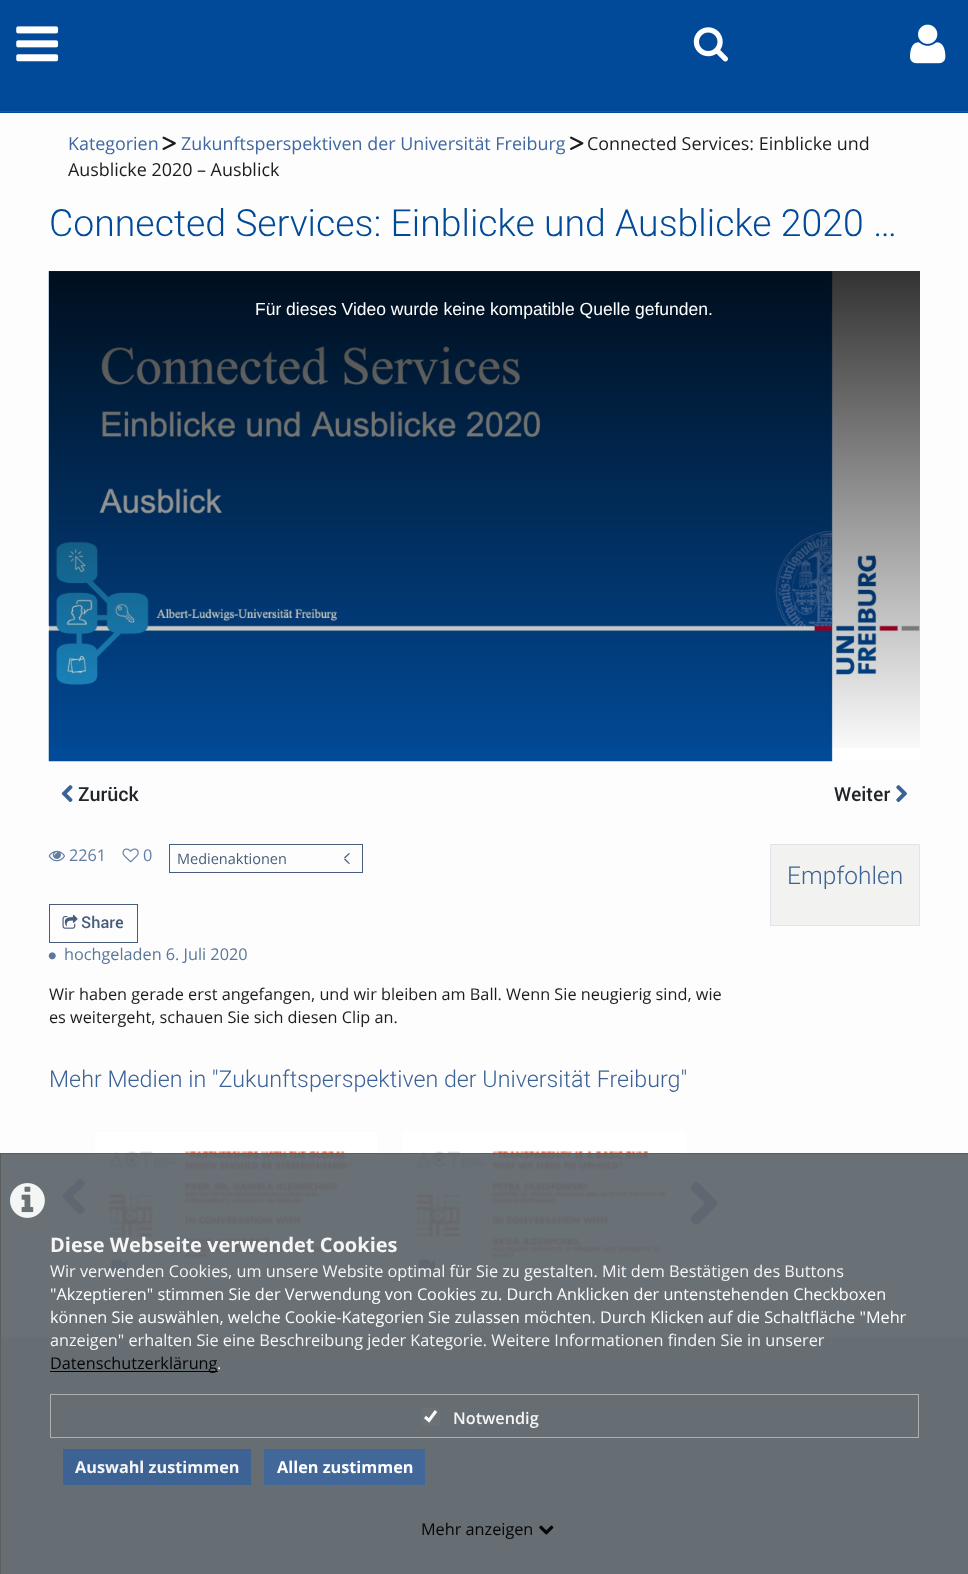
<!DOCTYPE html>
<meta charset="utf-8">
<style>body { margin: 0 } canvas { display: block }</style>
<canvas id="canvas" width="968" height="1574"></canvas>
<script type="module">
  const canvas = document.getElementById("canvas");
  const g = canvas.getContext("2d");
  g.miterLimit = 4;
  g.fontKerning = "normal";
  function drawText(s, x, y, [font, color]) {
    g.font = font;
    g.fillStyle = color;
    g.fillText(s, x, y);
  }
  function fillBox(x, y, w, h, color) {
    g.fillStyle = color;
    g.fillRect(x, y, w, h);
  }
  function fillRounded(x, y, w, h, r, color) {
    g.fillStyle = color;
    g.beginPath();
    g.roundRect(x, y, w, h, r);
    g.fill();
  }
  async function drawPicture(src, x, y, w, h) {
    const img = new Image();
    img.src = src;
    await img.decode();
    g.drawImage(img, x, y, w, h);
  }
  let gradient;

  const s1 = ["17.9px Open Sans", "#3F68A2"];
  const s2 = ["17.9px Open Sans", "#1A1C1E"];
  const s3 = ["300 37.4px Roboto", "#004A99"];
  const s4 = ["17.5px Liberation Sans", "#FFFFFF"];
  const s5 = ["500 19.5px Roboto", "#212529"];
  const s6 = ["16.25px Open Sans", "#617CA3"];
  const s7 = ["14.5px Open Sans", "#475D7B"];
  const s8 = ["500 16.25px Roboto", "#475D7B"];
  const s9 = ["16.25px Open Sans", "#5B779A"];
  const s10 = ["16.25px Open Sans", "#1A1C1E"];
  const s11 = ["300 23.25px Roboto", "#3B6297"];
  const s12 = ["300 24.5px Roboto", "#3B6297"];
  const s13 = ["bold 20px Open Sans", "#F5F5F5"];
  const s14 = ["16.25px Open Sans", "#F5F5F5"];
  const s15 = ["16.25px Open Sans", "#FFFFFF"];
  const s16 = ["16.25px Open Sans", "#050506"];
  const s17 = ["600 16.25px Open Sans", "#F5F5F5"];
  const s18 = ["bold 16.25px Open Sans", "#F5F5F5"];
  const s19 = ["bold 16.25px Open Sans", "#FFFFFF"];

  fillBox(0, 0, 968, 1574, "#FDFDFD");
  fillBox(0, 0, 968, 113, "#004A99");
  fillBox(0, 111, 968, 1, "#1A5CA3");
  await drawPicture("pic1.png", 16, 26, 43, 36);
  await drawPicture("pic2.png", 693, 27, 35, 35);
  await drawPicture("pic3.png", 910, 24, 36, 40);
  drawText("Kategorien", 68, 150, s1);
  await drawPicture("pic4.png", 162, 136, 14, 14);
  drawText("Zukunftsperspektiven der Universität Freiburg", 181, 150, s1);
  await drawPicture("pic5.png", 570, 136, 14, 14);
  drawText("Connected Services: Einblicke und", 587, 150, s2);
  drawText("Ausblicke 2020 – Ausblick", 68, 176, s2);
  drawText("Connected Services: Einblicke und Ausblicke 2020 …", 49, 236, s3);
  await drawPicture("pic6.png", 48, 271, 872, 491);
  gradient = g.createLinearGradient(484, 271, 484, 761);
  gradient.addColorStop(0, "rgba(0, 0, 0, 0.8)");
  gradient.addColorStop(1, "rgba(0, 0, 0, 0)");
  g.fillStyle = gradient;
  g.fillRect(49, 271, 871, 477);
  drawText("Für dieses Video wurde keine kompatible Quelle gefunden.", 255, 315, s4);
  await drawPicture("pic7.png", 61, 785, 12, 17);
  drawText("Zurück", 78, 801, s5);
  drawText("Weiter", 834, 801, s5);
  await drawPicture("pic8.png", 896, 785, 11, 18);
  await drawPicture("pic9.png", 48, 850, 17, 12);
  drawText("2261", 69, 861, s6);
  await drawPicture("pic10.png", 122, 848, 17, 15);
  drawText("0", 143, 861, s6);
  g.strokeStyle = "#475D7B";
  g.strokeRect(169.5, 844.5, 193, 28);
  drawText("Medienaktionen", 177, 864, s7);
  g.beginPath();
  g.moveTo(345, 858.5);
  g.lineTo(350, 863.5);
  g.lineTo(349, 864);
  g.lineTo(344, 859.5);
  g.closePath();
  g.fill();
  g.beginPath();
  g.moveTo(349, 853);
  g.lineTo(350, 853.5);
  g.lineTo(345, 858.5);
  g.lineTo(344, 857.5);
  g.closePath();
  g.fill();
  g.strokeRect(49.5, 904.5, 88, 38);
  await drawPicture("pic11.png", 62, 914, 16, 15);
  drawText("Share", 81, 928, s8);
  await drawPicture("pic12.png", 48, 952, 8, 8);
  drawText("hochgeladen 6. Juli 2020", 64, 960, s9);
  drawText("Wir haben gerade erst angefangen, und wir bleiben am Ball. Wenn Sie neugierig sind, wie", 49, 1000, s10);
  drawText("es weitergeht, schauen Sie sich diesen Clip an.", 49, 1023, s10);
  drawText("Mehr Medien in \"Zukunftsperspektiven der Universität Freiburg\"", 49, 1087, s11);
  await drawPicture("pic13.png", 62, 1178, 23, 37);
  fillBox(95, 1131, 284, 157, "#ECEFF2");
  await drawPicture("pic14.png", 95, 1131, 284, 157);
  await drawPicture("pic15.png", 111, 1259, 17, 13);
  await drawPicture("pic16.png", 403, 1131, 283, 157);
  await drawPicture("pic17.png", 418, 1259, 17, 13);
  await drawPicture("pic18.png", 690, 1182, 28, 43);
  g.fillStyle = "#F2F3F1";
  g.beginPath();
  g.rect(770.5, 844.5, 149, 81);
  g.fill();
  g.strokeStyle = "#DFE5EB";
  g.stroke();
  drawText("Empfohlen", 787, 884, s12);
  fillBox(0, 1337, 968, 1, "#ECEFF2");
  fillBox(0, 1336, 968, 1, "#DFE5EB");
  fillBox(0, 1338, 968, 236, "#C9CAC8");
  fillBox(0, 1153, 968, 421, "rgba(97, 104, 111, 0.95)");
  g.strokeStyle = "rgba(92, 92, 92, 0.95)";
  g.strokeRect(0.5, 1153.5, 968, 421);
  await drawPicture("pic19.png", 10, 1183, 35, 35);
  drawText("Diese Webseite verwendet Cookies", 50, 1252, s13);
  drawText("Wir verwenden Cookies, um unsere Website optimal für Sie zu gestalten. Mit dem Bestätigen des Buttons", 50, 1277, s14);
  drawText("\"Akzeptieren\" stimmen Sie der Verwendung von Cookies zu. Durch Anklicken der untenstehenden Checkboxen", 50, 1300, s15);
  drawText("können Sie auswählen, welche Cookie-Kategorien Sie zulassen möchten. Durch Klicken auf die Schaltfläche \"Mehr", 50, 1323, s15);
  drawText("anzeigen\" erhalten Sie eine Beschreibung jeder Kategorie. Weitere Informationen finden Sie in unserer", 50, 1346, s14);
  fillBox(50, 1371, 168, 1, "rgba(0, 0, 0, 0.95)");
  drawText("Datenschutzerklärung", 50, 1369, s16);
  drawText(".", 217, 1369, s14);
  g.strokeStyle = "rgba(176, 179, 184, 0.95)";
  g.strokeRect(50.5, 1394.5, 868, 43);
  fillRounded(421, 1408, 19, 18, 2.5, "#6C7175");
  g.beginPath();
  g.moveTo(425, 1417);
  g.lineTo(429, 1420.5);
  g.lineTo(436, 1411);
  g.strokeStyle = "#FCFCFC";
  g.lineWidth = 3;
  g.stroke();
  drawText("Notwendig", 453, 1424, s17);
  fillBox(63, 1449, 188, 36, "rgba(59, 98, 151, 0.95)");
  drawText("Auswahl zustimmen", 75, 1473, s18);
  fillBox(264, 1449, 161, 36, "#426799");
  drawText("Allen zustimmen", 277, 1473, s19);
  drawText("Mehr anzeigen", 421, 1535, s16);
  await drawPicture("pic20.png", 539, 1525, 15, 10);
</script>
